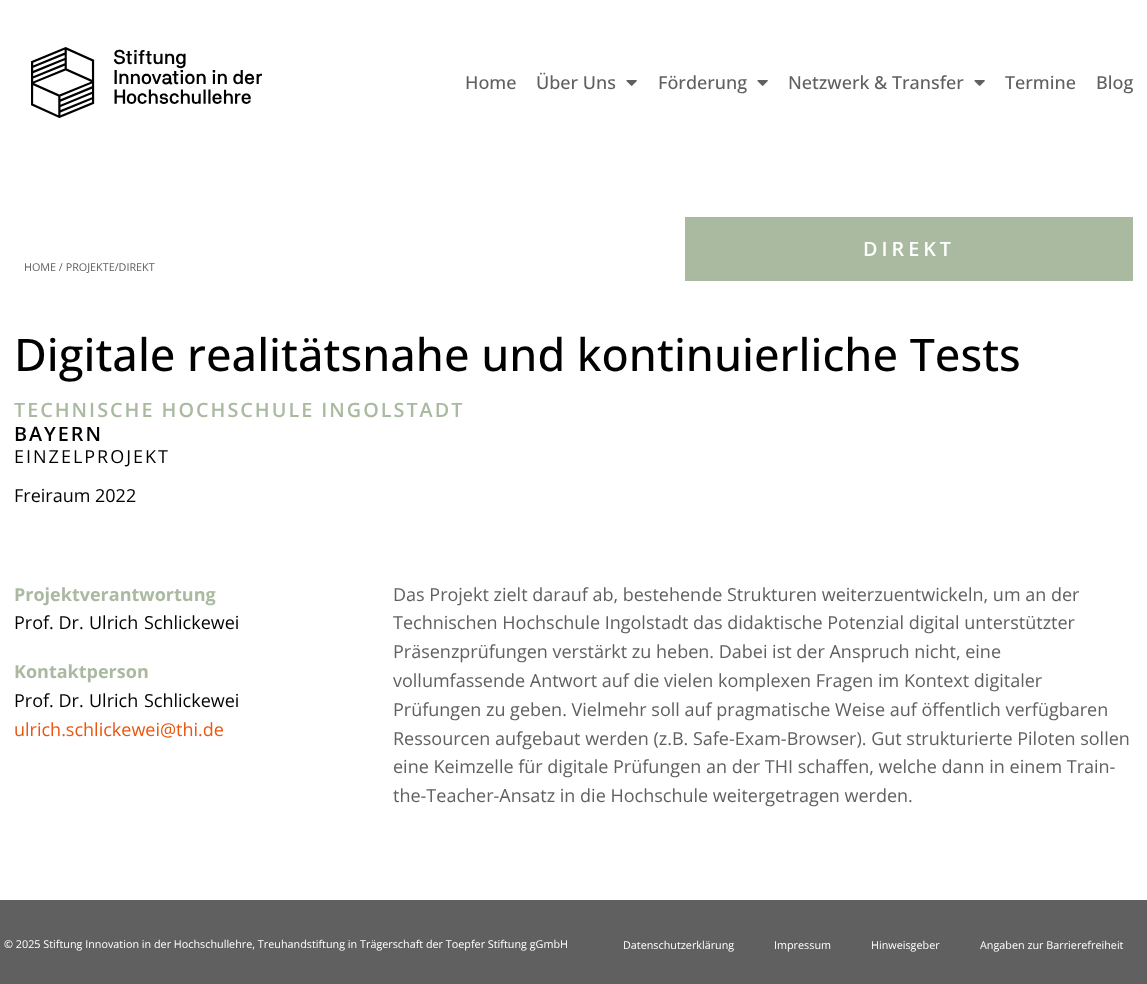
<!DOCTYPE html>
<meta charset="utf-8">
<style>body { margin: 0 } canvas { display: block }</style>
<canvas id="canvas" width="1147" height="984"></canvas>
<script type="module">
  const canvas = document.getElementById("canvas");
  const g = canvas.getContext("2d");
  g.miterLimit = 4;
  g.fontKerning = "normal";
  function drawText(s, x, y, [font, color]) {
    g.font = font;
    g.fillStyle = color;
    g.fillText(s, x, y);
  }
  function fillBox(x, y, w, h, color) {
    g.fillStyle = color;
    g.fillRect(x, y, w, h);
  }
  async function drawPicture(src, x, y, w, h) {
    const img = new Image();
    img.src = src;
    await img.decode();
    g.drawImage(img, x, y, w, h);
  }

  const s1 = ["500 18px Open Sans", "#606060"];
  const s2 = ["600 19.8px Open Sans", "#FFFFFF"];
  const s3 = ["10.8px Open Sans", "#606060"];
  const s4 = ["500 45px Open Sans", "#000000"];
  const s5 = ["600 19.8px Open Sans", "#AABAA1"];
  const s6 = ["600 19.8px Open Sans", "#000000"];
  const s7 = ["18px Open Sans", "#000000"];
  const s8 = ["bold 18px Open Sans", "#AABAA1"];
  const s9 = ["18px Open Sans", "#EA560D"];
  const s10 = ["18px Open Sans", "#606060"];
  const s11 = ["10.8px Open Sans", "#FFFFFF"];

  fillBox(0, 0, 1147, 984, "#FFFFFF");
  await drawPicture("pic1.png", 31, 47, 231, 71);
  drawText("Home", 465, 89, s1);
  drawText("Über Uns", 536, 89, s1);
  await drawPicture("pic2.png", 626, 80, 11, 6);
  drawText("Förderung", 658, 89, s1);
  await drawPicture("pic2.png", 757, 80, 11, 6);
  drawText("Netzwerk & Transfer", 788, 89, s1);
  await drawPicture("pic2.png", 974, 80, 11, 6);
  drawText("Termine", 1005, 89, s1);
  drawText("Blog", 1096, 89, s1);
  fillBox(685, 217, 448, 64, "#AABAA1");
  g.letterSpacing = "4px";
  drawText("DIREKT", 863, 256, s2);
  g.letterSpacing = "0px";
  drawText("HOME / PROJEKTE/DIREKT", 24, 271, s3);
  drawText("Digitale realitätsnahe und kontinuierliche Tests", 14, 371, s4);
  g.letterSpacing = "2px";
  drawText("TECHNISCHE HOCHSCHULE INGOLSTADT", 14, 417, s5);
  drawText("BAYERN", 14, 441, s6);
  drawText("EINZELPROJEKT", 14, 463, s7);
  g.letterSpacing = "0px";
  drawText("Freiraum 2022", 14, 502, s7);
  drawText("Projektverantwortung", 14, 601, s8);
  drawText("Prof. Dr.", 14, 629, s7);
  drawText("Ulrich", 89, 629, s7);
  drawText("Schlickewei", 144, 629, s7);
  drawText("Kontaktperson", 14, 678, s8);
  drawText("Prof. Dr.", 14, 707, s7);
  drawText("Ulrich", 89, 707, s7);
  drawText("Schlickewei", 144, 707, s7);
  drawText("ulrich.schlickewei@thi.de", 14, 736, s9);
  drawText("Das Projekt zielt darauf ab, bestehende Strukturen weiterzuentwickeln, um an der", 393, 601, s10);
  drawText("Technischen Hochschule Ingolstadt das didaktische Potenzial digital unterstützter", 393, 629, s10);
  drawText("Präsenzprüfungen verstärkt zu heben. Dabei ist der Anspruch nicht, eine", 393, 658, s10);
  drawText("vollumfassende Antwort auf die vielen komplexen Fragen im Kontext digitaler", 393, 687, s10);
  drawText("Prüfungen zu geben. Vielmehr soll auf pragmatische Weise auf öffentlich verfügbaren", 393, 716, s10);
  drawText("Ressourcen aufgebaut werden (z.B. Safe-Exam-Browser). Gut strukturierte Piloten sollen", 393, 745, s10);
  drawText("eine Keimzelle für digitale Prüfungen an der THI schaffen, welche dann in einem Train-", 393, 773, s10);
  drawText("the-Teacher-Ansatz in die Hochschule weitergetragen werden.", 393, 802, s10);
  fillBox(0, 900, 1147, 84, "#606060");
  drawText("© 2025 Stiftung Innovation in der Hochschullehre, Treuhandstiftung in Trägerschaft der Toepfer Stiftung gGmbH", 4, 948, s11);
  drawText("Datenschutzerklärung", 623, 949, s11);
  drawText("Impressum", 774, 949, s11);
  drawText("Hinweisgeber", 871, 949, s11);
  drawText("Angaben zur Barrierefreiheit", 980, 949, s11);
</script>
